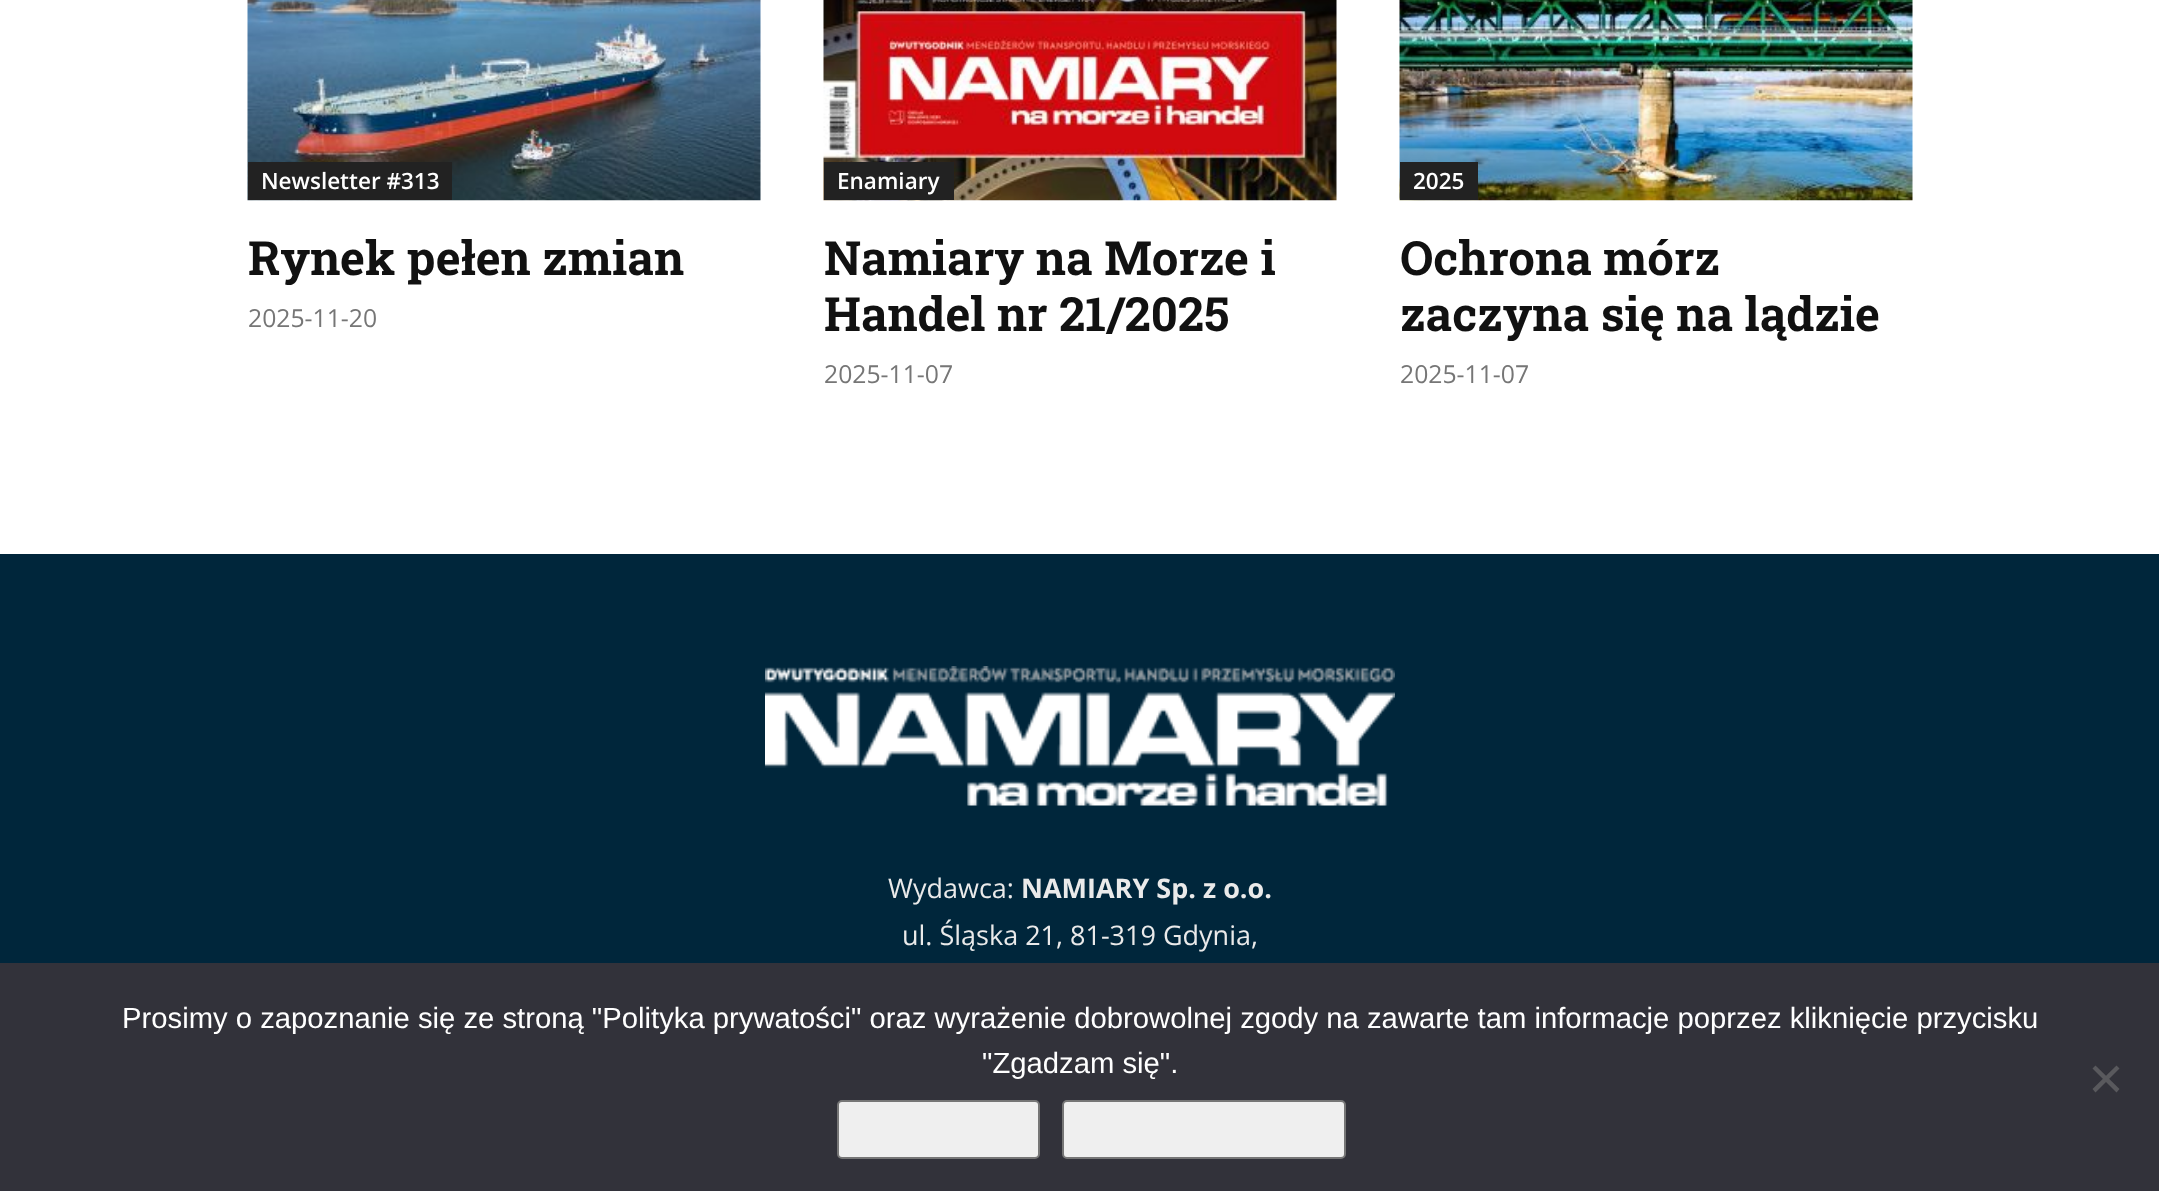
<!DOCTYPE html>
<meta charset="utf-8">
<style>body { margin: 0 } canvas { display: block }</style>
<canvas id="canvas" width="2159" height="1191"></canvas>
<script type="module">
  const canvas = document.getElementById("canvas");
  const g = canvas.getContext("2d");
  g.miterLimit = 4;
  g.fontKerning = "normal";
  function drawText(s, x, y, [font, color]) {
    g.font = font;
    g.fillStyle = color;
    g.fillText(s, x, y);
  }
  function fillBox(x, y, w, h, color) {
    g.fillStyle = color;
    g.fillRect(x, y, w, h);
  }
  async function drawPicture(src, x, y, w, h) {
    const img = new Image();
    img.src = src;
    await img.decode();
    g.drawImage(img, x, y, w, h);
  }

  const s1 = ["600 22.5px Open Sans", "#FFFFFF"];
  const s2 = ["bold 47.25px Roboto Slab", "#111111"];
  const s3 = ["24.75px Open Sans", "#767676"];
  const s4 = ["27px Open Sans", "#EAEAEA"];
  const s5 = ["bold 27px Open Sans", "#EAEAEA"];
  const s6 = ["29.25px Liberation Sans", "#FFFFFF"];

  fillBox(0, 0, 2159, 1191, "#FFFFFF");
  await drawPicture("pic1.png", 247, 0, 514, 201);
  fillBox(248, 162, 204, 38, "#222222");
  drawText("Newsletter #313", 261, 189, s1);
  drawText("Rynek pełen zmian", 248, 275, s2);
  drawText("2025-11-20", 248, 327, s3);
  await drawPicture("pic2.png", 823, 0, 514, 201);
  fillBox(824, 162, 130, 38, "#222222");
  drawText("Enamiary", 837, 189, s1);
  drawText("Namiary na Morze i", 824, 275, s2);
  drawText("Handel nr 21/2025", 824, 331, s2);
  drawText("2025-11-07", 824, 383, s3);
  await drawPicture("pic3.png", 1399, 0, 514, 201);
  fillBox(1400, 162, 78, 38, "#222222");
  drawText("2025", 1413, 189, s1);
  drawText("Ochrona mórz", 1400, 275, s2);
  drawText("zaczyna się na lądzie", 1400, 331, s2);
  drawText("2025-11-07", 1400, 383, s3);
  fillBox(0, 554, 2159, 409, "#00263B");
  await drawPicture("pic4.png", 765, 666, 630, 140);
  drawText("Wydawca:", 888, 898, s4);
  drawText("NAMIARY Sp. z o.o.", 1021, 898, s5);
  drawText("ul. Śląska 21, 81-319 Gdynia,", 902, 945, s4);
  fillBox(0, 963, 2159, 228, "#32323A");
  drawText("Prosimy o zapoznanie się ze stroną \"Polityka prywatości\" oraz wyrażenie dobrowolnej zgody na zawarte tam informacje poprzez kliknięcie przycisku", 122, 1028, s6);
  drawText("\"Zgadzam się\".", 982, 1073, s6);
  g.fillStyle = "#59595D";
  g.beginPath();
  g.moveTo(2116.5, 1065.5);
  g.lineTo(2119.5, 1068.5);
  g.lineTo(2095.5, 1092.5);
  g.lineTo(2092.5, 1089);
  g.closePath();
  g.fill();
  g.beginPath();
  g.moveTo(2092.5, 1068.5);
  g.lineTo(2095.5, 1065.5);
  g.lineTo(2119.5, 1089);
  g.lineTo(2116.5, 1092.5);
  g.closePath();
  g.fill();
  g.fillStyle = "#EFEFEF";
  g.beginPath();
  g.roundRect(838, 1101, 201, 57, 4);
  g.fill();
  g.strokeStyle = "#767676";
  g.lineWidth = 2;
  g.stroke();
  g.beginPath();
  g.roundRect(1063, 1101, 282, 57, 4);
  g.fill();
  g.stroke();
</script>
